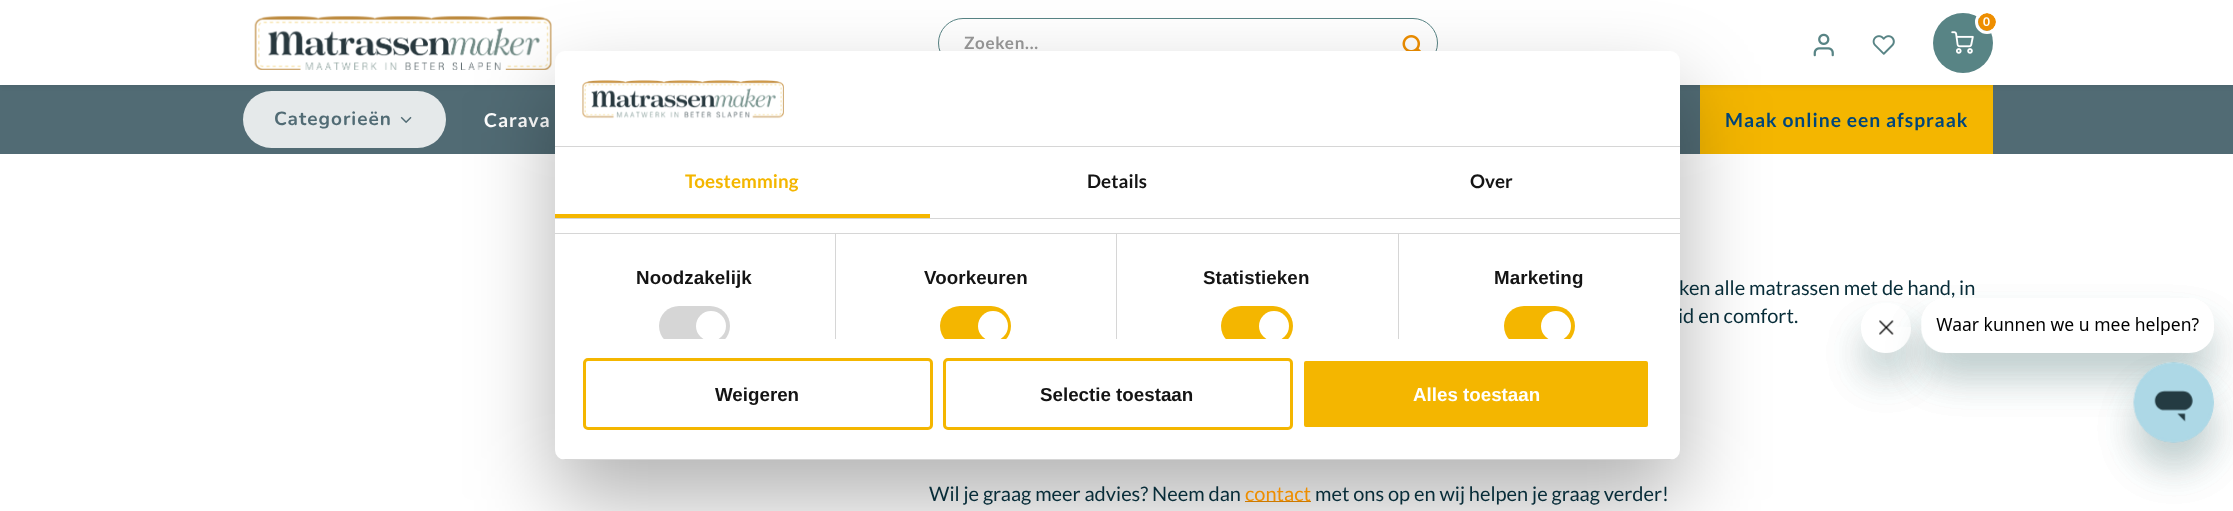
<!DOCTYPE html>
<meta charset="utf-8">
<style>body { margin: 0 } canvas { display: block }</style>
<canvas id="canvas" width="2233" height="511"></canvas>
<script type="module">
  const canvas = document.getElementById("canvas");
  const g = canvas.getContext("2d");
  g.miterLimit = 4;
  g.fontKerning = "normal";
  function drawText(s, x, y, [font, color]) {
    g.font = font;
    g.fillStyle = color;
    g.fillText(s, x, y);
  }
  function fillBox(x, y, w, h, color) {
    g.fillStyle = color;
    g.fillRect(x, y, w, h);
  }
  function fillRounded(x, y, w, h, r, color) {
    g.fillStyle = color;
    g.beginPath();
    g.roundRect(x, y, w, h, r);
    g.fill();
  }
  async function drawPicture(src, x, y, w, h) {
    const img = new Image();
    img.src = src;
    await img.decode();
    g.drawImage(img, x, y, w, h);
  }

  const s1 = ["bold 12px Lato", "#FFFFFF"];
  const s2 = ["bold 17px Lato", "#999999"];
  const s3 = ["bold 19px Nunito", "#516B74"];
  const s4 = ["bold 19.25px Lato", "#FFFFFF"];
  const s5 = ["bold 19.25px Lato", "#00467B"];
  const s6 = ["20px Lato", "#072C38"];
  const s7 = ["bold 18.75px Lato", "#F4B600"];
  const s8 = ["bold 18.75px Lato", "#141414"];
  const s9 = ["bold 18.75px Liberation Sans", "#141414"];
  const s10 = ["bold 18.75px Liberation Sans", "#FFFFFF"];
  const s11 = ["20px Lato", "#EE8E00"];

  fillBox(0, 0, 2233, 511, "#FFFFFF");
  fillBox(0, 85, 2233, 69, "#516B74");
  fillRounded(243, 91, 203, 57, 28.5, "#E5E9EA");
  fillBox(1700, 85, 293, 69, "#F4B600");
  g.fillStyle = "rgba(0, 0, 0, 0.08)";
  g.filter = "blur(2.5px)";
  g.beginPath();
  g.rect(0, 1, 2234, 85);
  g.fill();
  g.filter = "none";
  fillBox(0, 0, 2233, 85, "#FFFFFF");
  await drawPicture("pic1.png", 254, 15, 298, 55);
  g.fillStyle = "#588485";
  g.beginPath();
  g.arc(1963, 43, 30, 0, Math.PI * 2);
  g.fill();
  g.fillStyle = "#EE8E00";
  g.beginPath();
  g.arc(1987, 22, 9, 0, Math.PI * 2);
  g.fill();
  g.beginPath();
  g.arc(1987, 22, 10.5, 0, Math.PI * 2);
  g.strokeStyle = "#FFFFFF";
  g.lineWidth = 3;
  g.stroke();
  drawText("0", 1983, 26, s1);
  await drawPicture("pic2.png", 1951, 31, 23, 23);
  await drawPicture("pic3.png", 1813, 33, 21, 24);
  await drawPicture("pic4.png", 1872, 35, 23, 20);
  g.beginPath();
  g.roundRect(938.5, 18.5, 499, 49, 24.5);
  g.strokeStyle = "#588485";
  g.lineWidth = 1;
  g.stroke();
  g.letterSpacing = "0.75px";
  drawText("Zoeken...", 964, 49, s2);
  await drawPicture("pic5.png", 1402, 35, 19, 16);
  g.letterSpacing = "1px";
  drawText("Categorieën", 274, 125, s3);
  await drawPicture("pic6.png", 400, 116, 12, 7);
  drawText("Carava", 484, 127, s4);
  drawText("Maak online een afspraak", 1725, 127, s5);
  fillBox(1245, 501, 66, 1, "#EE8E00");
  g.fillStyle = "rgba(0, 0, 0, 0.3)";
  g.filter = "blur(42.5px)";
  g.beginPath();
  g.roundRect(555, 91, 1125, 409, 10);
  g.fill();
  g.filter = "none";
  g.letterSpacing = "0px";
  drawText("id en comfort.", 1678, 323, s6);
  fillRounded(555, 51, 1125, 409, 10, "#FFFFFF");
  fillBox(555, 146, 1125, 1, "#D6D6D6");
  await drawPicture("pic7.png", 582, 80, 202, 39);
  fillBox(555, 218, 1125, 1, "#D6D6D6");
  fillBox(555, 214, 375, 4, "#F4B600");
  g.letterSpacing = "0.1px";
  drawText("Toestemming", 685, 188, s7);
  drawText("Details", 1087, 188, s8);
  drawText("Over", 1470, 188, s8);
  fillBox(555, 233, 1125, 1, "#D6D6D6");
  fillBox(835, 234, 1, 105, "#D6D6D6");
  drawText("Noodzakelijk", 636, 284, s9);
  g.save();
  g.beginPath();
  g.rect(555, 219, 1125, 120);
  g.clip();
  fillRounded(659, 306, 71, 40, 20, "#D6D6D6");
  g.fillStyle = "#FFFFFF";
  g.beginPath();
  g.arc(711, 326, 15, 0, Math.PI * 2);
  g.fill();
  g.restore();
  fillBox(1116, 234, 1, 105, "#D6D6D6");
  drawText("Voorkeuren", 924, 284, s9);
  g.save();
  g.beginPath();
  g.rect(555, 219, 1125, 120);
  g.clip();
  fillRounded(940, 306, 71, 40, 20, "#F4B600");
  g.fillStyle = "#FFFFFF";
  g.beginPath();
  g.arc(993, 326, 15, 0, Math.PI * 2);
  g.fill();
  g.restore();
  fillBox(1398, 234, 1, 105, "#D6D6D6");
  drawText("Statistieken", 1203, 284, s9);
  g.save();
  g.beginPath();
  g.rect(555, 219, 1125, 120);
  g.clip();
  fillRounded(1221, 306, 72, 40, 20, "#F4B600");
  g.fillStyle = "#FFFFFF";
  g.beginPath();
  g.arc(1274, 326, 15, 0, Math.PI * 2);
  g.fill();
  g.restore();
  drawText("Marketing", 1494, 284, s9);
  g.save();
  g.beginPath();
  g.rect(555, 219, 1125, 120);
  g.clip();
  fillRounded(1504, 306, 71, 40, 20, "#F4B600");
  g.fillStyle = "#FFFFFF";
  g.beginPath();
  g.arc(1556, 326, 15, 0, Math.PI * 2);
  g.fill();
  g.restore();
  g.save();
  g.beginPath();
  g.roundRect(555, 51, 1125, 409, 10);
  g.clip();
  fillBox(555, 459, 1125, 1, "#D6D6D6");
  g.restore();
  g.beginPath();
  g.roundRect(584.5, 359.5, 347, 69, 3.5);
  g.strokeStyle = "#F4B600";
  g.lineWidth = 3;
  g.stroke();
  g.letterSpacing = "0px";
  drawText("Weigeren", 715, 401, s9);
  g.beginPath();
  g.roundRect(944.5, 359.5, 347, 69, 3.5);
  g.stroke();
  drawText("Selectie toestaan", 1040, 401, s9);
  g.fillStyle = "#F4B600";
  g.beginPath();
  g.roundRect(1302.5, 359.5, 347, 69, 3.5);
  g.fill();
  g.strokeStyle = "#FFFFFF";
  g.stroke();
  drawText("Alles toestaan", 1413, 401, s10);
  g.save();
  g.beginPath();
  g.moveTo(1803, 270);
  g.lineTo(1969, 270);
  g.lineTo(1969, 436);
  g.lineTo(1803, 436);
  g.closePath();
  g.moveTo(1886, 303);
  g.bezierCurveTo(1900, 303, 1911, 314, 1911, 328);
  g.bezierCurveTo(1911, 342, 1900, 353, 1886, 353);
  g.bezierCurveTo(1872, 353, 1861, 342, 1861, 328);
  g.bezierCurveTo(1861, 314, 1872, 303, 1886, 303);
  g.closePath();
  g.clip("evenodd");
  g.fillStyle = "rgba(23, 73, 77, 0.15)";
  g.filter = "blur(19px)";
  g.beginPath();
  g.roundRect(1861, 328, 50, 50, 25);
  g.fill();
  g.filter = "none";
  g.restore();
  await drawPicture("pic9.png", 1872, 320, 22, 33);
  g.save();
  g.beginPath();
  g.moveTo(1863, 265);
  g.lineTo(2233, 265);
  g.lineTo(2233, 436);
  g.lineTo(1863, 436);
  g.closePath();
  g.moveTo(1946, 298);
  g.lineTo(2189, 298);
  g.bezierCurveTo(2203, 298, 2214, 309, 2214, 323);
  g.lineTo(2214, 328);
  g.bezierCurveTo(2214, 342, 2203, 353, 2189, 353);
  g.lineTo(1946, 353);
  g.bezierCurveTo(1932, 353, 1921, 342, 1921, 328);
  g.lineTo(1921, 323);
  g.bezierCurveTo(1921, 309, 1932, 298, 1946, 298);
  g.closePath();
  g.clip("evenodd");
  g.fillStyle = "rgba(23, 73, 77, 0.15)";
  g.filter = "blur(19px)";
  g.beginPath();
  g.roundRect(1921, 323, 293, 55, 25);
  g.fill();
  g.filter = "none";
  g.restore();
  drawText("ken alle matrassen met de hand, in", 1679, 295, s6);
  await drawPicture("pic8.png", 1923, 297, 276, 49);
  g.fillStyle = "rgba(23, 73, 77, 0.15)";
  g.filter = "blur(19px)";
  g.beginPath();
  g.roundRect(2134, 388, 80, 80, 40);
  g.fill();
  g.filter = "none";
  await drawPicture("pic10.png", 2133, 362, 81, 81);
  drawText("Wil je graag meer advies? Neem dan", 929, 501, s6);
  drawText("contact", 1245, 501, s11);
  drawText("met ons op en wij helpen je graag verder!", 1315, 501, s6);
  g.save();
  g.beginPath();
  g.moveTo(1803, 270);
  g.lineTo(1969, 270);
  g.lineTo(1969, 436);
  g.lineTo(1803, 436);
  g.closePath();
  g.moveTo(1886, 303);
  g.bezierCurveTo(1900, 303, 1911, 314, 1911, 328);
  g.bezierCurveTo(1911, 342, 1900, 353, 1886, 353);
  g.bezierCurveTo(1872, 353, 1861, 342, 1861, 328);
  g.bezierCurveTo(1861, 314, 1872, 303, 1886, 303);
  g.closePath();
  g.clip("evenodd");
  g.fillStyle = "rgba(23, 73, 77, 0.15)";
  g.filter = "blur(19px)";
  g.beginPath();
  g.roundRect(1861, 328, 50, 50, 25);
  g.fill();
  g.filter = "none";
  g.restore();
  await drawPicture("pic12.png", 1865, 327, 46, 26);
  g.save();
  g.beginPath();
  g.moveTo(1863, 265);
  g.lineTo(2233, 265);
  g.lineTo(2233, 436);
  g.lineTo(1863, 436);
  g.closePath();
  g.moveTo(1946, 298);
  g.lineTo(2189, 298);
  g.bezierCurveTo(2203, 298, 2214, 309, 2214, 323);
  g.lineTo(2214, 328);
  g.bezierCurveTo(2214, 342, 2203, 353, 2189, 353);
  g.lineTo(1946, 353);
  g.bezierCurveTo(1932, 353, 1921, 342, 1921, 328);
  g.lineTo(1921, 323);
  g.bezierCurveTo(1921, 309, 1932, 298, 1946, 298);
  g.closePath();
  g.clip("evenodd");
  g.fillStyle = "rgba(23, 73, 77, 0.15)";
  g.filter = "blur(19px)";
  g.beginPath();
  g.roundRect(1921, 323, 293, 55, 25);
  g.fill();
  g.filter = "none";
  g.restore();
  await drawPicture("pic11.png", 1922, 297, 283, 55);
  g.fillStyle = "rgba(23, 73, 77, 0.15)";
  g.filter = "blur(19px)";
  g.beginPath();
  g.roundRect(2134, 388, 80, 80, 40);
  g.fill();
  g.filter = "none";
  await drawPicture("pic13.png", 2133, 362, 81, 81);
</script>
